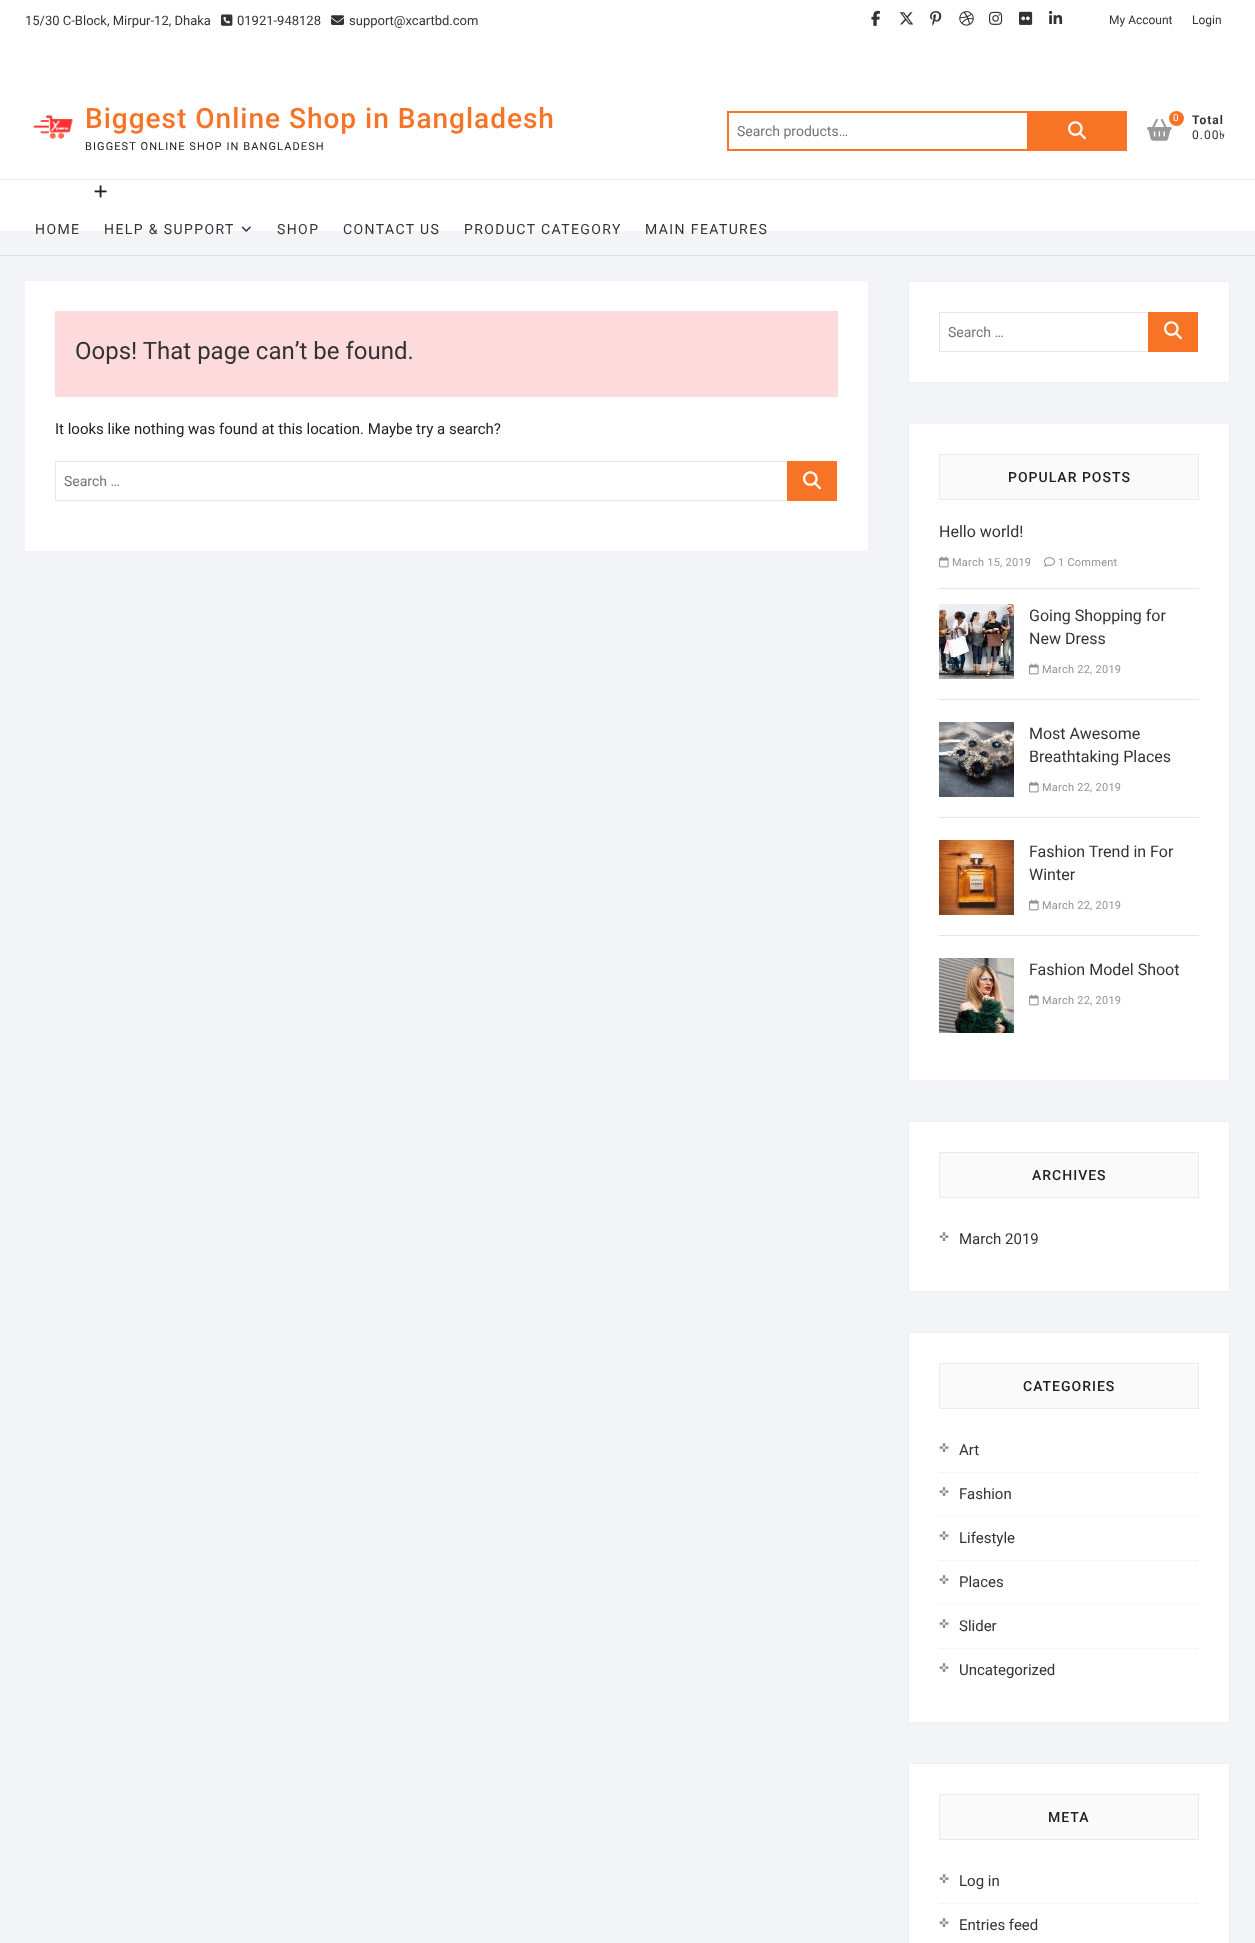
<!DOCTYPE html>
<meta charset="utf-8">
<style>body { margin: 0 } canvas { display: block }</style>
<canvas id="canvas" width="1255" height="1943"></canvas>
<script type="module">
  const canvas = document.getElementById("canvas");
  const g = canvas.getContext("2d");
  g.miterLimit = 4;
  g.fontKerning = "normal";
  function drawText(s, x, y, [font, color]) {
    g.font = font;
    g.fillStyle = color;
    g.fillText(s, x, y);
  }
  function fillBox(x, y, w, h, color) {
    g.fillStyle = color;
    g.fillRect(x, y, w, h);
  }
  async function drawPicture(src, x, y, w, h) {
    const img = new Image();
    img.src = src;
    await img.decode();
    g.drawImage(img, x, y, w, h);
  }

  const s1 = ["13px Roboto", "#333333"];
  const s2 = ["12px Roboto", "#333333"];
  const s3 = ["500 28px Roboto", "#F77426"];
  const s4 = ["11px Roboto", "#222222"];
  const s5 = ["14px Roboto", "#757575"];
  const s6 = ["10px Roboto", "#FFFFFF"];
  const s7 = ["bold 12px Roboto", "#333333"];
  const s8 = ["12px Lohit Bengali", "#333333"];
  const s9 = ["14px Roboto", "#333333"];
  const s10 = ["24px Roboto", "#333333"];
  const s11 = ["15px Roboto", "#222222"];
  const s12 = ["500 14px Roboto", "#222222"];
  const s13 = ["16px Roboto", "#333333"];
  const s14 = ["11px Roboto", "#949494"];
  const s15 = ["12px DejaVu Sans", "#888888"];
  const s16 = ["15px Roboto", "#333333"];

  fillBox(0, 0, 1255, 1943, "#F3F4F8");
  fillBox(0, 0, 1255, 231, "#FFFFFF");
  drawText("15/30 C-Block, Mirpur-12, Dhaka", 25, 25, s1);
  await drawPicture("pic1.png", 221, 14, 12, 12);
  drawText("01921-948128", 237, 25, s1);
  await drawPicture("pic2.png", 331, 15, 13, 10);
  drawText("support@xcartbd.com", 349, 25, s1);
  await drawPicture("pic3.png", 871, 10, 9, 16);
  await drawPicture("pic4.png", 899, 12, 15, 13);
  await drawPicture("pic5.png", 930, 11, 12, 15);
  await drawPicture("pic6.png", 959, 11, 15, 15);
  await drawPicture("pic7.png", 989, 11, 14, 14);
  await drawPicture("pic8.png", 1019, 11, 14, 14);
  await drawPicture("pic9.png", 1049, 10, 14, 14);
  drawText("My Account", 1109, 24, s2);
  drawText("Login", 1192, 24, s2);
  await drawPicture("pic10.png", 33, 115, 40, 24);
  g.letterSpacing = "1px";
  drawText("Biggest Online Shop in Bangladesh", 85, 128, s3);
  g.letterSpacing = "1.1px";
  drawText("BIGGEST ONLINE SHOP IN BANGLADESH", 85, 150, s4);
  fillBox(727, 111, 300, 2, "#F77426");
  fillBox(727, 149, 300, 2, "#F77426");
  fillBox(727, 111, 2, 40, "#F77426");
  g.letterSpacing = "0px";
  drawText("Search products…", 737, 136, s5);
  fillBox(1027, 111, 100, 40, "#F77426");
  await drawPicture("pic11.png", 1068, 121, 18, 19);
  await drawPicture("pic12.png", 1147, 118, 25, 23);
  g.beginPath();
  g.arc(1176.5, 118.5, 7.5, 0, Math.PI * 2);
  g.fill();
  drawText("0", 1173, 121, s6);
  g.letterSpacing = "1px";
  drawText("Total", 1192, 124, s7);
  drawText("0.00", 1192, 139, s2);
  drawText("৳", 1219, 139, s8);
  fillBox(0, 179, 1255, 1, "#EBEBEB");
  fillBox(0, 255, 1255, 1, "#E0E0E4");
  g.letterSpacing = "1.4px";
  drawText("HOME", 35, 234, s9);
  await drawPicture("pic13.png", 94, 185, 13, 13);
  drawText("HELP & SUPPORT", 104, 234, s9);
  await drawPicture("pic14.png", 241, 226, 10, 6);
  drawText("SHOP", 277, 234, s9);
  drawText("CONTACT US", 343, 234, s9);
  drawText("PRODUCT CATEGORY", 464, 234, s9);
  drawText("MAIN FEATURES", 645, 234, s9);
  fillBox(25, 281, 843, 270, "#FFFFFF");
  fillBox(55, 311, 783, 86, "#FDDBDD");
  g.letterSpacing = "0px";
  drawText("Oops! That page can’t be found.", 75, 359, s10);
  drawText("It looks like nothing was found at this location. Maybe try a search?", 55, 434, s11);
  g.strokeStyle = "#E6E6E6";
  g.strokeRect(55.5, 461.5, 732, 39);
  drawText("Search …", 64, 486, s5);
  fillBox(787, 461, 50, 40, "#F77426");
  await drawPicture("pic11.png", 803, 471, 18, 19);
  g.fillStyle = "#FFFFFF";
  g.beginPath();
  g.rect(908.5, 281.5, 321, 101);
  g.fill();
  g.strokeStyle = "#F0F0F0";
  g.stroke();
  g.strokeStyle = "#E6E6E6";
  g.strokeRect(939.5, 312.5, 209, 39);
  drawText("Search …", 948, 337, s5);
  fillBox(1148, 312, 50, 40, "#F77426");
  await drawPicture("pic11.png", 1164, 321, 18, 19);
  g.fillStyle = "#FFFFFF";
  g.beginPath();
  g.rect(908.5, 423.5, 321, 657);
  g.fill();
  g.strokeStyle = "#F0F0F0";
  g.stroke();
  g.fillStyle = "#FAFAFA";
  g.beginPath();
  g.rect(939.5, 454.5, 259, 45);
  g.fill();
  g.strokeStyle = "#EBEBEB";
  g.stroke();
  g.letterSpacing = "1px";
  drawText("POPULAR POSTS", 1008, 482, s12);
  fillBox(939, 588, 260, 1, "#E6E6E6");
  g.letterSpacing = "0px";
  drawText("Hello world!", 939, 537, s13);
  await drawPicture("pic15.png", 939, 556, 10, 12);
  g.letterSpacing = "0.25px";
  drawText("March 15, 2019", 952, 566, s14);
  await drawPicture("pic16.png", 1044, 557, 11, 10);
  drawText("1 Comment", 1058, 566, s14);
  fillBox(939, 699, 260, 1, "#E6E6E6");
  await drawPicture("pic17.png", 939, 604, 75, 75);
  g.letterSpacing = "0px";
  drawText("Going Shopping for", 1029, 621, s13);
  drawText("New Dress", 1029, 644, s13);
  await drawPicture("pic15.png", 1029, 663, 10, 12);
  g.letterSpacing = "0.25px";
  drawText("March 22, 2019", 1042, 673, s14);
  fillBox(939, 817, 260, 1, "#E6E6E6");
  await drawPicture("pic18.png", 939, 722, 75, 75);
  g.letterSpacing = "0px";
  drawText("Most Awesome", 1029, 739, s13);
  drawText("Breathtaking Places", 1029, 762, s13);
  await drawPicture("pic15.png", 1029, 781, 10, 12);
  g.letterSpacing = "0.25px";
  drawText("March 22, 2019", 1042, 791, s14);
  fillBox(939, 935, 260, 1, "#E6E6E6");
  await drawPicture("pic19.png", 939, 840, 75, 75);
  g.letterSpacing = "0px";
  drawText("Fashion Trend in For", 1029, 857, s13);
  drawText("Winter", 1029, 880, s13);
  await drawPicture("pic15.png", 1029, 899, 10, 12);
  g.letterSpacing = "0.25px";
  drawText("March 22, 2019", 1042, 909, s14);
  await drawPicture("pic20.png", 939, 958, 75, 75);
  g.letterSpacing = "0px";
  drawText("Fashion Model Shoot", 1029, 975, s13);
  await drawPicture("pic15.png", 1029, 994, 10, 12);
  g.letterSpacing = "0.25px";
  drawText("March 22, 2019", 1042, 1004, s14);
  g.fillStyle = "#FFFFFF";
  g.beginPath();
  g.rect(908.5, 1121.5, 321, 170);
  g.fill();
  g.strokeStyle = "#F0F0F0";
  g.stroke();
  g.fillStyle = "#FAFAFA";
  g.beginPath();
  g.rect(939.5, 1152.5, 259, 45);
  g.fill();
  g.strokeStyle = "#EBEBEB";
  g.stroke();
  g.letterSpacing = "1px";
  drawText("ARCHIVES", 1032, 1180, s12);
  g.letterSpacing = "0px";
  drawText("✜", 939, 1241, s15);
  drawText("March 2019", 959, 1244, s16);
  g.fillStyle = "#FFFFFF";
  g.beginPath();
  g.rect(908.5, 1332.5, 321, 390);
  g.fill();
  g.strokeStyle = "#F0F0F0";
  g.stroke();
  g.fillStyle = "#FAFAFA";
  g.beginPath();
  g.rect(939.5, 1363.5, 259, 45);
  g.fill();
  g.strokeStyle = "#EBEBEB";
  g.stroke();
  g.letterSpacing = "1px";
  drawText("CATEGORIES", 1023, 1391, s12);
  g.beginPath();
  g.moveTo(939, 1472.5);
  g.lineTo(1199, 1472.5);
  g.strokeStyle = "#EEEEEE";
  g.setLineDash([1, 1]);
  g.stroke();
  g.letterSpacing = "0px";
  drawText("✜", 939, 1452, s15);
  drawText("Art", 959, 1455, s16);
  g.beginPath();
  g.moveTo(939, 1516.5);
  g.lineTo(1199, 1516.5);
  g.stroke();
  drawText("✜", 939, 1496, s15);
  drawText("Fashion", 959, 1499, s16);
  g.beginPath();
  g.moveTo(939, 1560.5);
  g.lineTo(1199, 1560.5);
  g.stroke();
  drawText("✜", 939, 1540, s15);
  drawText("Lifestyle", 959, 1543, s16);
  g.beginPath();
  g.moveTo(939, 1604.5);
  g.lineTo(1199, 1604.5);
  g.stroke();
  drawText("✜", 939, 1584, s15);
  drawText("Places", 959, 1587, s16);
  g.beginPath();
  g.moveTo(939, 1648.5);
  g.lineTo(1199, 1648.5);
  g.stroke();
  drawText("✜", 939, 1628, s15);
  drawText("Slider", 959, 1631, s16);
  drawText("✜", 939, 1672, s15);
  drawText("Uncategorized", 959, 1675, s16);
  g.fillStyle = "#FFFFFF";
  g.beginPath();
  g.rect(908.5, 1763.5, 321, 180);
  g.fill();
  g.strokeStyle = "#F0F0F0";
  g.setLineDash([]);
  g.stroke();
  g.fillStyle = "#FAFAFA";
  g.beginPath();
  g.rect(939.5, 1794.5, 259, 45);
  g.fill();
  g.strokeStyle = "#EBEBEB";
  g.stroke();
  g.letterSpacing = "1px";
  drawText("META", 1048, 1822, s12);
  g.beginPath();
  g.moveTo(939, 1903.5);
  g.lineTo(1199, 1903.5);
  g.strokeStyle = "#EEEEEE";
  g.setLineDash([1, 1]);
  g.stroke();
  g.letterSpacing = "0px";
  drawText("✜", 939, 1883, s15);
  drawText("Log in", 959, 1886, s16);
  drawText("✜", 939, 1927, s15);
  drawText("Entries feed", 959, 1930, s16);
</script>
